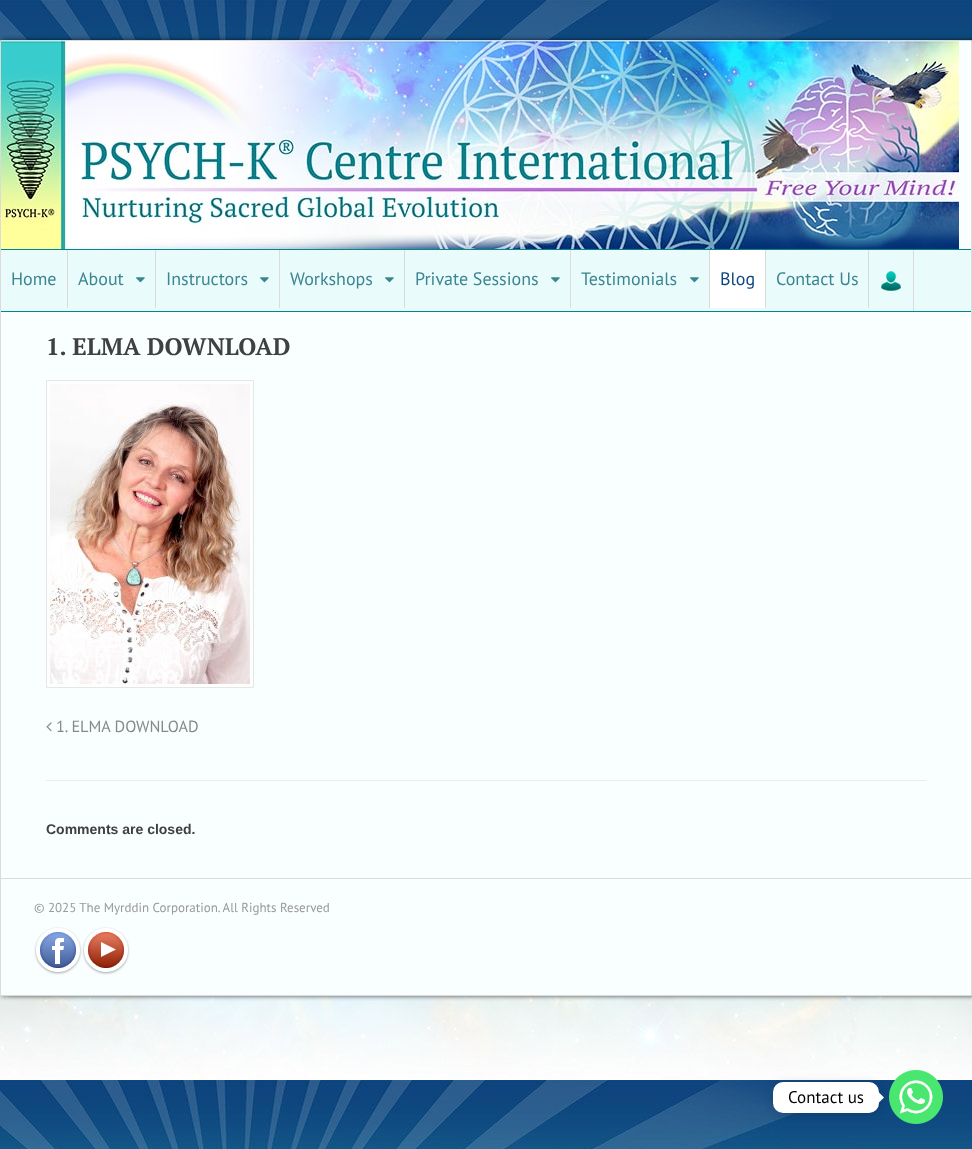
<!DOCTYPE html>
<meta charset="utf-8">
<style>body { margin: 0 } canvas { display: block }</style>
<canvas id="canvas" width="972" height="1149"></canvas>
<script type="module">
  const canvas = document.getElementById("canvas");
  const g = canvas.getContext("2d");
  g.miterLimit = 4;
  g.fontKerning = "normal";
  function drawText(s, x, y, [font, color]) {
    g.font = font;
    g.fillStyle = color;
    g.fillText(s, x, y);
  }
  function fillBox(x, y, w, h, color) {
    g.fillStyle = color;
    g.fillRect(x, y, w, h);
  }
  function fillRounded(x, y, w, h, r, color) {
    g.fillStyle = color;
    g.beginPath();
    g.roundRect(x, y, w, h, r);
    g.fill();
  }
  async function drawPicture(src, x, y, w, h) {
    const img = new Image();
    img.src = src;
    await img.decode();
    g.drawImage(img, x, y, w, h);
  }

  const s1 = ["18px PT Sans", "#3A8591"];
  const s2 = ["18px PT Sans", "#0F467E"];
  const s3 = ["bold 24px PT Serif", "#404040"];
  const s4 = ["16.25px PT Sans", "#888888"];
  const s5 = ["bold 14px Liberation Sans", "#404040"];
  const s6 = ["13px PT Sans", "#999999"];
  const s7 = ["17px PT Sans", "#000000"];

  fillBox(0, 0, 972, 1149, "#FFFFFF");
  await drawPicture("pic1.png", 0, 0, 972, 1149);
  g.fillStyle = "rgba(0, 0, 0, 0.7)";
  g.filter = "blur(2.5px)";
  g.beginPath();
  g.rect(2, 40, 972, 956);
  g.fill();
  g.filter = "none";
  g.fillStyle = "#F9FFFF";
  g.beginPath();
  g.rect(0.5, 40.5, 971, 955);
  g.fill();
  g.strokeStyle = "#DBDBDB";
  g.stroke();
  await drawPicture("pic2.png", 1, 41, 958, 208);
  fillBox(1, 250, 970, 61, "#EAFBFB");
  fillBox(1, 249, 970, 1, "#008591");
  fillBox(1, 311, 970, 1, "#008591");
  fillBox(67, 250, 1, 58, "#DBDBDB");
  drawText("Home", 11, 285, s1);
  fillBox(155, 250, 1, 58, "#DBDBDB");
  drawText("About", 78, 285, s1);
  await drawPicture("pic3.png", 136, 277, 9, 6);
  fillBox(279, 250, 1, 58, "#DBDBDB");
  drawText("Instructors", 166, 285, s1);
  await drawPicture("pic3.png", 260, 277, 9, 6);
  fillBox(404, 250, 1, 58, "#DBDBDB");
  drawText("Workshops", 290, 285, s1);
  await drawPicture("pic3.png", 385, 277, 9, 6);
  fillBox(570, 250, 1, 58, "#DBDBDB");
  drawText("Private Sessions", 415, 285, s1);
  await drawPicture("pic3.png", 551, 277, 9, 6);
  fillBox(709, 250, 1, 58, "#DBDBDB");
  drawText("Testimonials", 581, 285, s1);
  await drawPicture("pic3.png", 690, 277, 9, 6);
  fillBox(765, 250, 1, 58, "#DBDBDB");
  fillBox(710, 250, 55, 58, "#FFFFFF");
  drawText("Blog", 720, 285, s2);
  fillBox(868, 250, 1, 58, "#DBDBDB");
  drawText("Contact Us", 776, 285, s1);
  fillBox(913, 250, 1, 61, "#DBDBDB");
  await drawPicture("pic4.png", 881, 271, 20, 20);
  drawText("1. ELMA DOWNLOAD", 46, 355, s3);
  g.fillStyle = "#FDFFFF";
  g.beginPath();
  g.rect(46.5, 380.5, 207, 307);
  g.fill();
  g.strokeStyle = "#E6E6E6";
  g.stroke();
  await drawPicture("pic5.png", 50, 384, 200, 300);
  await drawPicture("pic6.png", 46, 722, 6, 10);
  drawText("1. ELMA DOWNLOAD", 56, 732, s4);
  fillBox(46, 780, 880, 1, "#E8EDED");
  drawText("Comments are closed.", 46, 834, s5);
  fillBox(1, 878, 970, 1, "#DBDBDB");
  drawText("© 2025 The Myrddin Corporation. All Rights Reserved", 34, 912, s6);
  await drawPicture("pic7.png", 34, 927, 48, 48);
  await drawPicture("pic8.png", 82, 927, 48, 48);
  await drawPicture("pic9.png", 889, 1070, 54, 54);
  g.fillStyle = "rgba(0, 0, 0, 0.15)";
  g.filter = "blur(4px)";
  g.beginPath();
  g.roundRect(773, 1083, 106, 31, 10);
  g.fill();
  g.filter = "none";
  fillRounded(773, 1082, 106, 31, 10, "#FFFFFF");
  drawText("Contact us", 788, 1103, s7);
  g.fillStyle = "#FFFFFF";
  g.beginPath();
  g.moveTo(879, 1102.5);
  g.lineTo(879, 1092.5);
  g.lineTo(884, 1097.5);
  g.closePath();
  g.fill();
</script>
